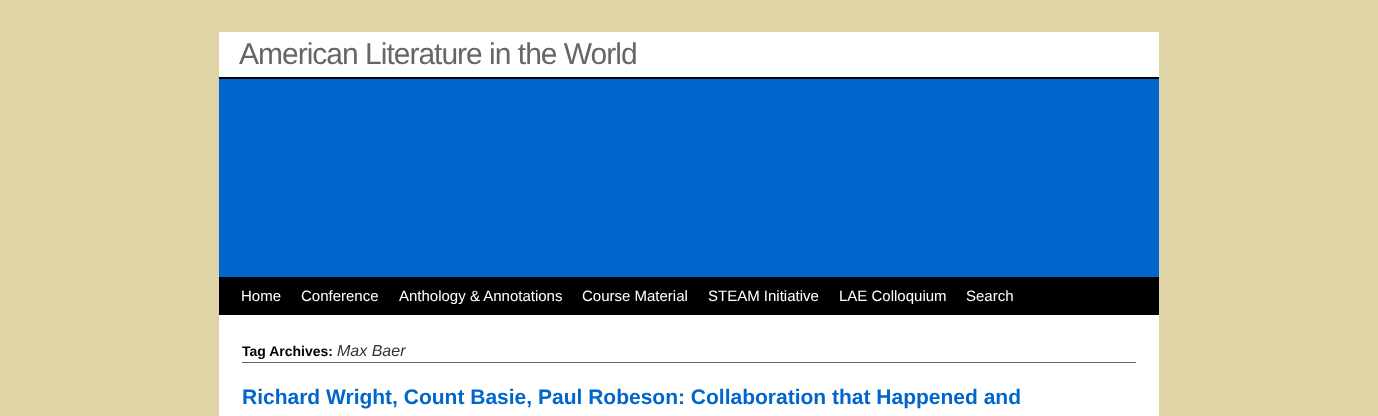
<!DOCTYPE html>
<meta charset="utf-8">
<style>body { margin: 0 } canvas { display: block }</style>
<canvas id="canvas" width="1378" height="416"></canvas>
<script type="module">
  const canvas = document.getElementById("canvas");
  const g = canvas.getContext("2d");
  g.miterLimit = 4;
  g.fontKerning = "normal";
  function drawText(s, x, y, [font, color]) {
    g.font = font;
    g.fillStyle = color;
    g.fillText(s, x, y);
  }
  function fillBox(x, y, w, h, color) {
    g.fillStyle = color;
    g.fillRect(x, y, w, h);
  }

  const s1 = ["30px Liberation Sans", "#666666"];
  const s2 = ["15px Liberation Sans", "#FFFFFF"];
  const s3 = ["bold 14px Liberation Sans", "#000000"];
  const s4 = ["italic 16px Liberation Sans", "#333333"];
  const s5 = ["bold 21px Liberation Sans", "#0066CC"];

  fillBox(0, 0, 1378, 416, "#DED4A5");
  fillBox(219, 32, 940, 384, "#FFFFFF");
  g.letterSpacing = "-1px";
  drawText("American Literature in the World", 239, 64, s1);
  fillBox(219, 79, 940, 198, "#0066CC");
  fillBox(219, 77, 940, 2, "#000000");
  fillBox(219, 277, 940, 38, "#000000");
  g.letterSpacing = "0px";
  drawText("Home", 241, 301, s2);
  drawText("Conference", 301, 301, s2);
  drawText("Anthology & Annotations", 399, 301, s2);
  drawText("Course Material", 582, 301, s2);
  drawText("STEAM Initiative", 708, 301, s2);
  drawText("LAE Colloquium", 839, 301, s2);
  drawText("Search", 966, 301, s2);
  fillBox(242, 362, 894, 1, "#666666");
  drawText("Tag Archives:", 242, 356, s3);
  drawText("Max Baer", 337, 356, s4);
  drawText("Richard Wright, Count Basie, Paul Robeson: Collaboration that Happened and", 242, 404, s5);
</script>
